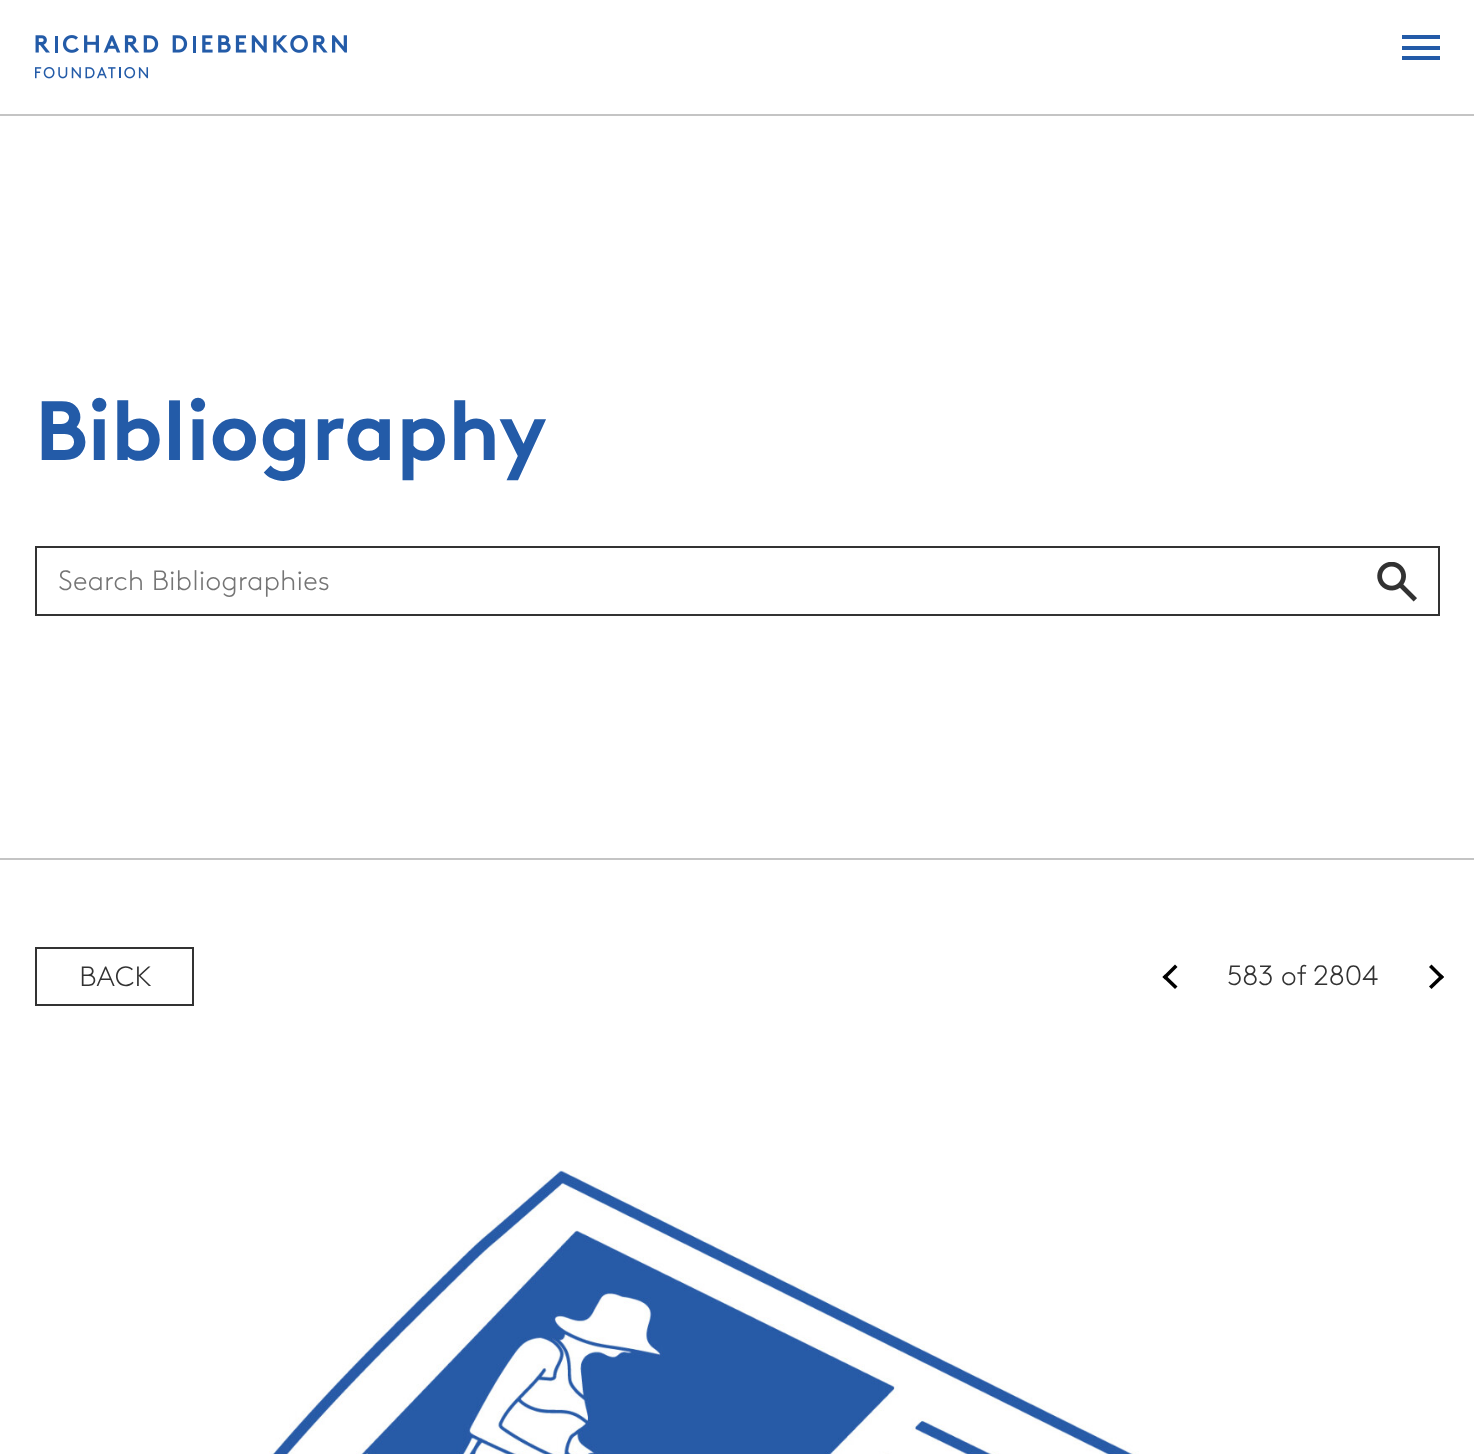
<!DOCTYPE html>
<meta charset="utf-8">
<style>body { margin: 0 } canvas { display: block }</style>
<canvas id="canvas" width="1474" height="1454"></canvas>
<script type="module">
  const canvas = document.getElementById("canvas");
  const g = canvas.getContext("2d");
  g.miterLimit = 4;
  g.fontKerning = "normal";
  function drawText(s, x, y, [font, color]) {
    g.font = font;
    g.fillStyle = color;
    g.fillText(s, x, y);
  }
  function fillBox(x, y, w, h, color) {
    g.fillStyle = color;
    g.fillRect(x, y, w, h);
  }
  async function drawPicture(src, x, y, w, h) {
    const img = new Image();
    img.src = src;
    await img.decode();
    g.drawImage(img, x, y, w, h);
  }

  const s1 = ["bold 84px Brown", "#235BA8"];
  const s2 = ["300 28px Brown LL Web", "#757575"];
  const s3 = ["300 28px Brown LL Web", "#323232"];

  fillBox(0, 0, 1474, 1454, "#FFFFFF");
  fillBox(0, 114, 1474, 2, "#C4C4C4");
  await drawPicture("pic1.png", 35, 35, 312, 44);
  fillBox(1402, 35, 38, 4, "#235BA8");
  fillBox(1402, 46, 38, 4, "#235BA8");
  fillBox(1402, 56, 38, 4, "#235BA8");
  drawText("Bibliography", 35, 460, s1);
  g.strokeStyle = "#323232";
  g.lineWidth = 2;
  g.strokeRect(36, 547, 1403, 68);
  drawText("Search Bibliographies", 58, 590, s2);
  await drawPicture("pic2.png", 1377, 562, 40, 40);
  fillBox(0, 858, 1474, 2, "#C4C4C4");
  g.strokeRect(36, 948, 157, 57);
  drawText("BACK", 79, 986, s3);
  g.fillStyle = "#000000";
  g.beginPath();
  g.moveTo(1165, 974.5);
  g.lineTo(1177.5, 986.5);
  g.lineTo(1175, 989);
  g.lineTo(1162.5, 977);
  g.closePath();
  g.fill();
  g.beginPath();
  g.moveTo(1175, 964.5);
  g.lineTo(1177.5, 967);
  g.lineTo(1165, 979.5);
  g.lineTo(1162.5, 977);
  g.closePath();
  g.fill();
  drawText("583 of 2804", 1227, 985, s3);
  g.fillStyle = "#000000";
  g.beginPath();
  g.moveTo(1429, 967);
  g.lineTo(1431.5, 964.5);
  g.lineTo(1444, 977);
  g.lineTo(1441.5, 979.5);
  g.closePath();
  g.fill();
  g.beginPath();
  g.moveTo(1429, 986.5);
  g.lineTo(1441.5, 974.5);
  g.lineTo(1444, 977);
  g.lineTo(1431.5, 989);
  g.closePath();
  g.fill();
  await drawPicture("pic3.png", 269, 1170, 870, 284);
</script>
